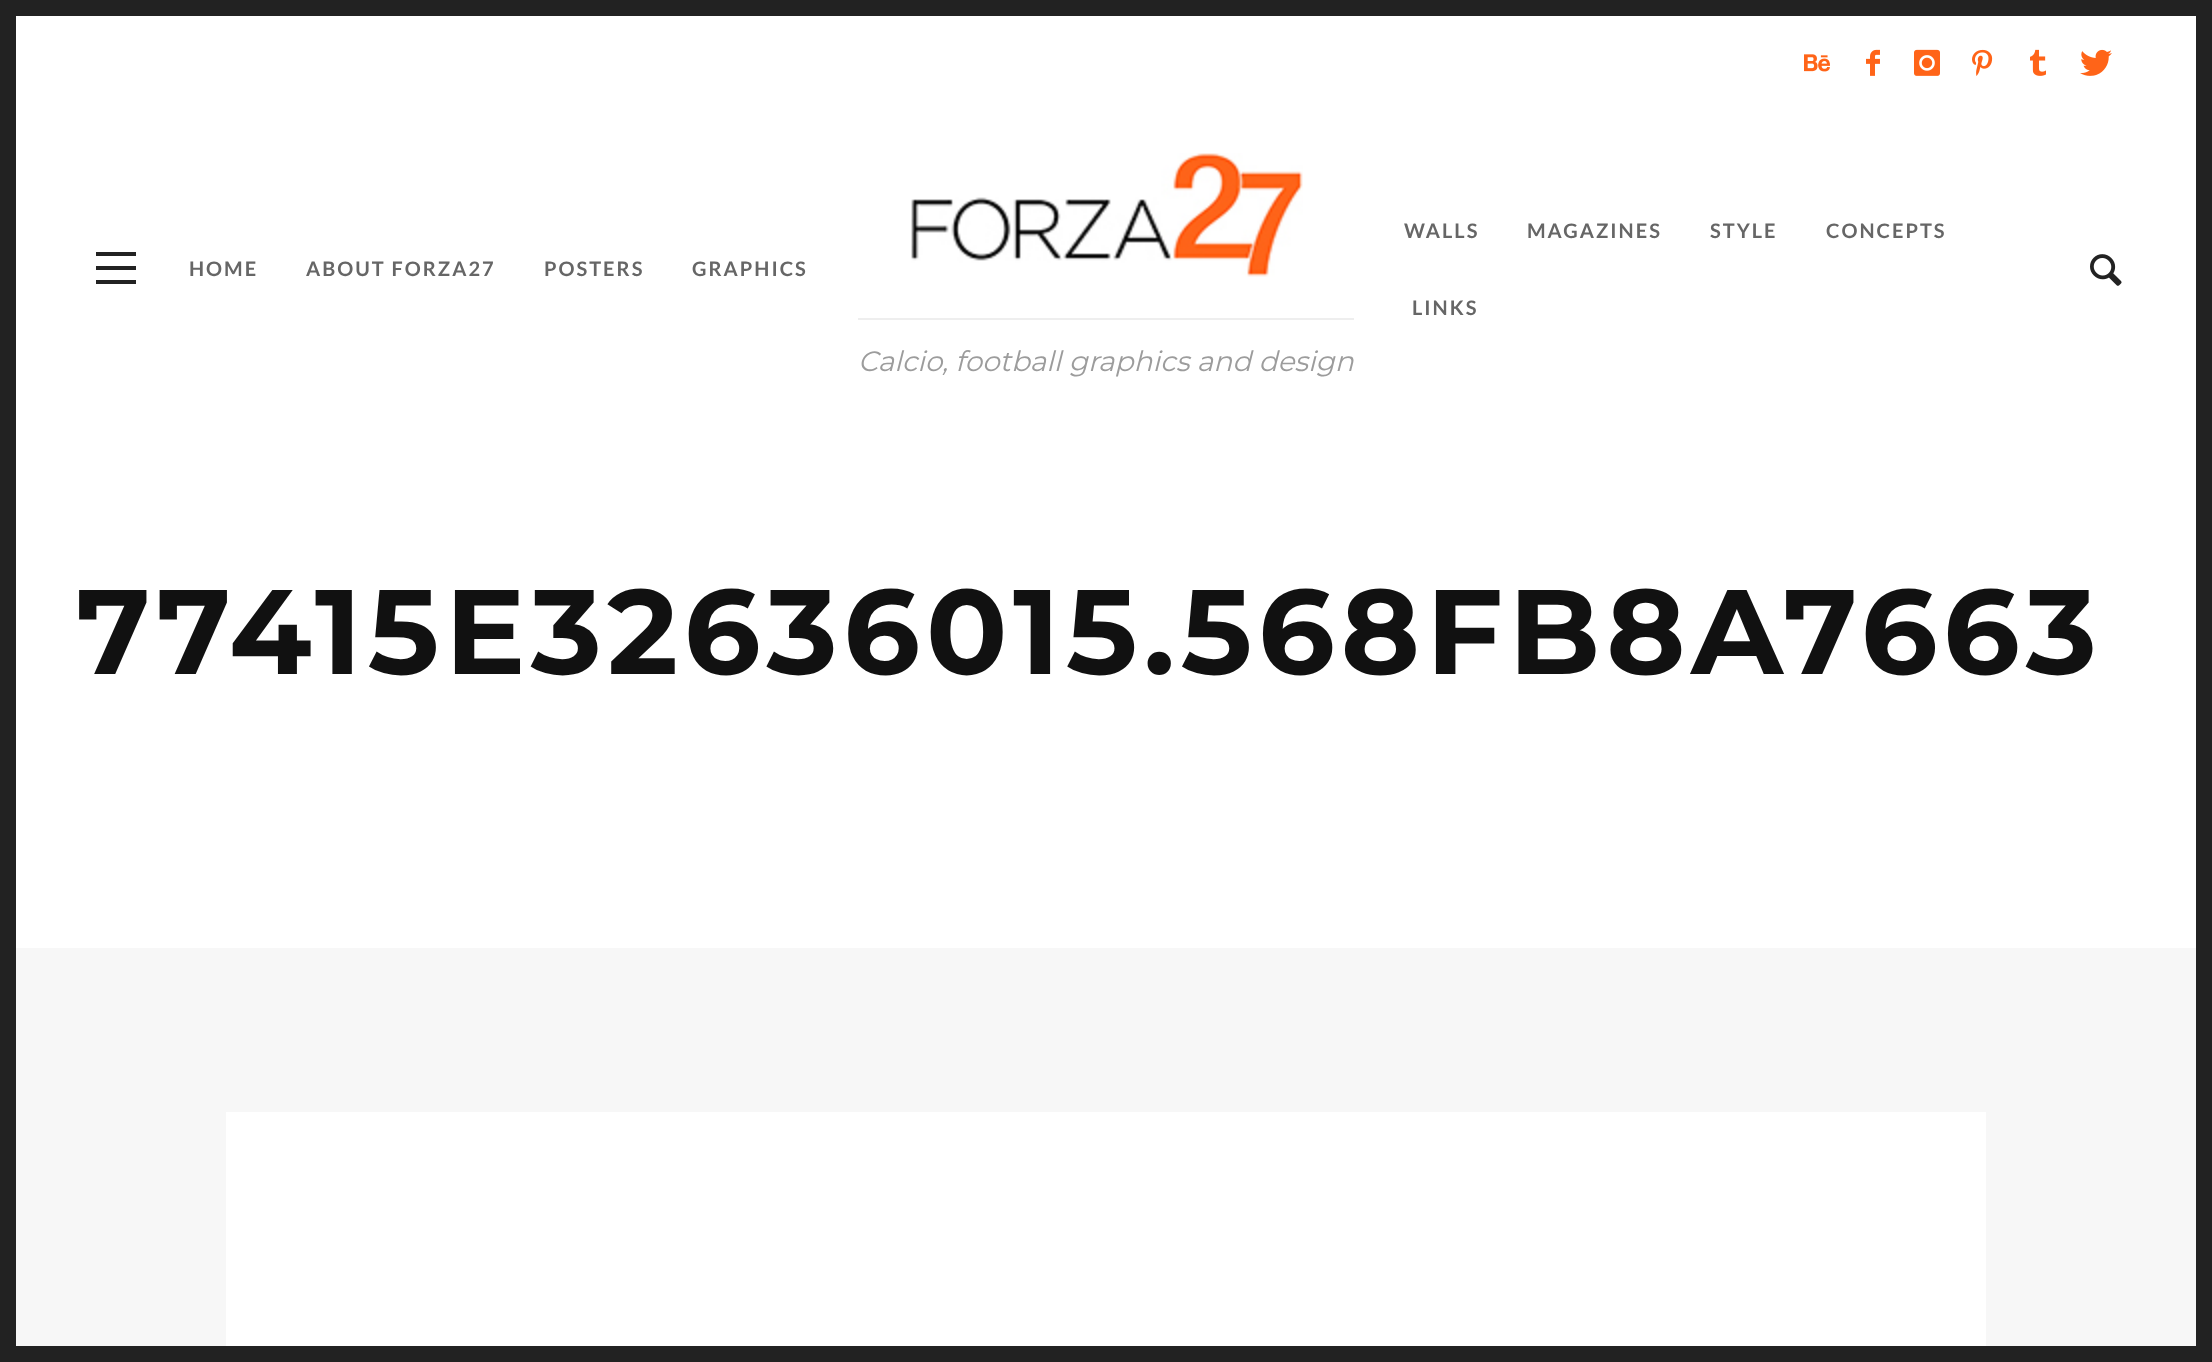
<!DOCTYPE html>
<meta charset="utf-8">
<style>body { margin: 0 } canvas { display: block }</style>
<canvas id="canvas" width="2212" height="1362"></canvas>
<script type="module">
  const canvas = document.getElementById("canvas");
  const g = canvas.getContext("2d");
  g.miterLimit = 4;
  g.fontKerning = "normal";
  function drawText(s, x, y, [font, color]) {
    g.font = font;
    g.fillStyle = color;
    g.fillText(s, x, y);
  }
  function fillBox(x, y, w, h, color) {
    g.fillStyle = color;
    g.fillRect(x, y, w, h);
  }
  async function drawPicture(src, x, y, w, h) {
    const img = new Image();
    img.src = src;
    await img.decode();
    g.drawImage(img, x, y, w, h);
  }

  const s1 = ["bold 20px Lato", "#666666"];
  const s2 = ["italic 28px Montserrat", "#9C9C9C"];
  const s3 = ["bold 120px Montserrat", "#111111"];

  fillBox(0, 0, 2212, 1362, "#FFFFFF");
  g.strokeStyle = "#222222";
  g.lineWidth = 16;
  g.strokeRect(8, 8, 2196, 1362);
  await drawPicture("pic1.png", 1804, 54, 26, 18);
  await drawPicture("pic2.png", 1866, 49, 14, 27);
  await drawPicture("pic3.png", 1914, 49, 26, 27);
  await drawPicture("pic4.png", 1972, 49, 21, 27);
  await drawPicture("pic5.png", 2030, 49, 16, 27);
  await drawPicture("pic6.png", 2080, 49, 32, 27);
  g.letterSpacing = "2px";
  drawText("HOME", 189, 276, s1);
  drawText("ABOUT FORZA27", 306, 276, s1);
  drawText("POSTERS", 544, 276, s1);
  drawText("GRAPHICS", 692, 276, s1);
  drawText("WALLS", 1404, 238, s1);
  drawText("MAGAZINES", 1527, 238, s1);
  drawText("STYLE", 1710, 238, s1);
  drawText("CONCEPTS", 1826, 238, s1);
  drawText("LINKS", 1412, 315, s1);
  fillBox(96, 266, 40, 4, "#222222");
  fillBox(96, 252, 40, 4, "#222222");
  fillBox(96, 280, 40, 4, "#222222");
  await drawPicture("pic7.png", 2090, 254, 32, 32);
  await drawPicture("pic8.png", 911, 153, 392, 124);
  fillBox(858, 318, 496, 2, "#EEEEEE");
  g.letterSpacing = "0px";
  drawText("Calcio, football graphics and design", 858, 371, s2);
  g.letterSpacing = "6px";
  drawText("77415E32636015.568FB8A7663", 76, 674, s3);
  fillBox(16, 948, 2180, 398, "#F7F7F7");
  fillBox(226, 1112, 1760, 234, "#FFFFFF");
  fillBox(16, 1346, 2180, 16, "#222222");
</script>
